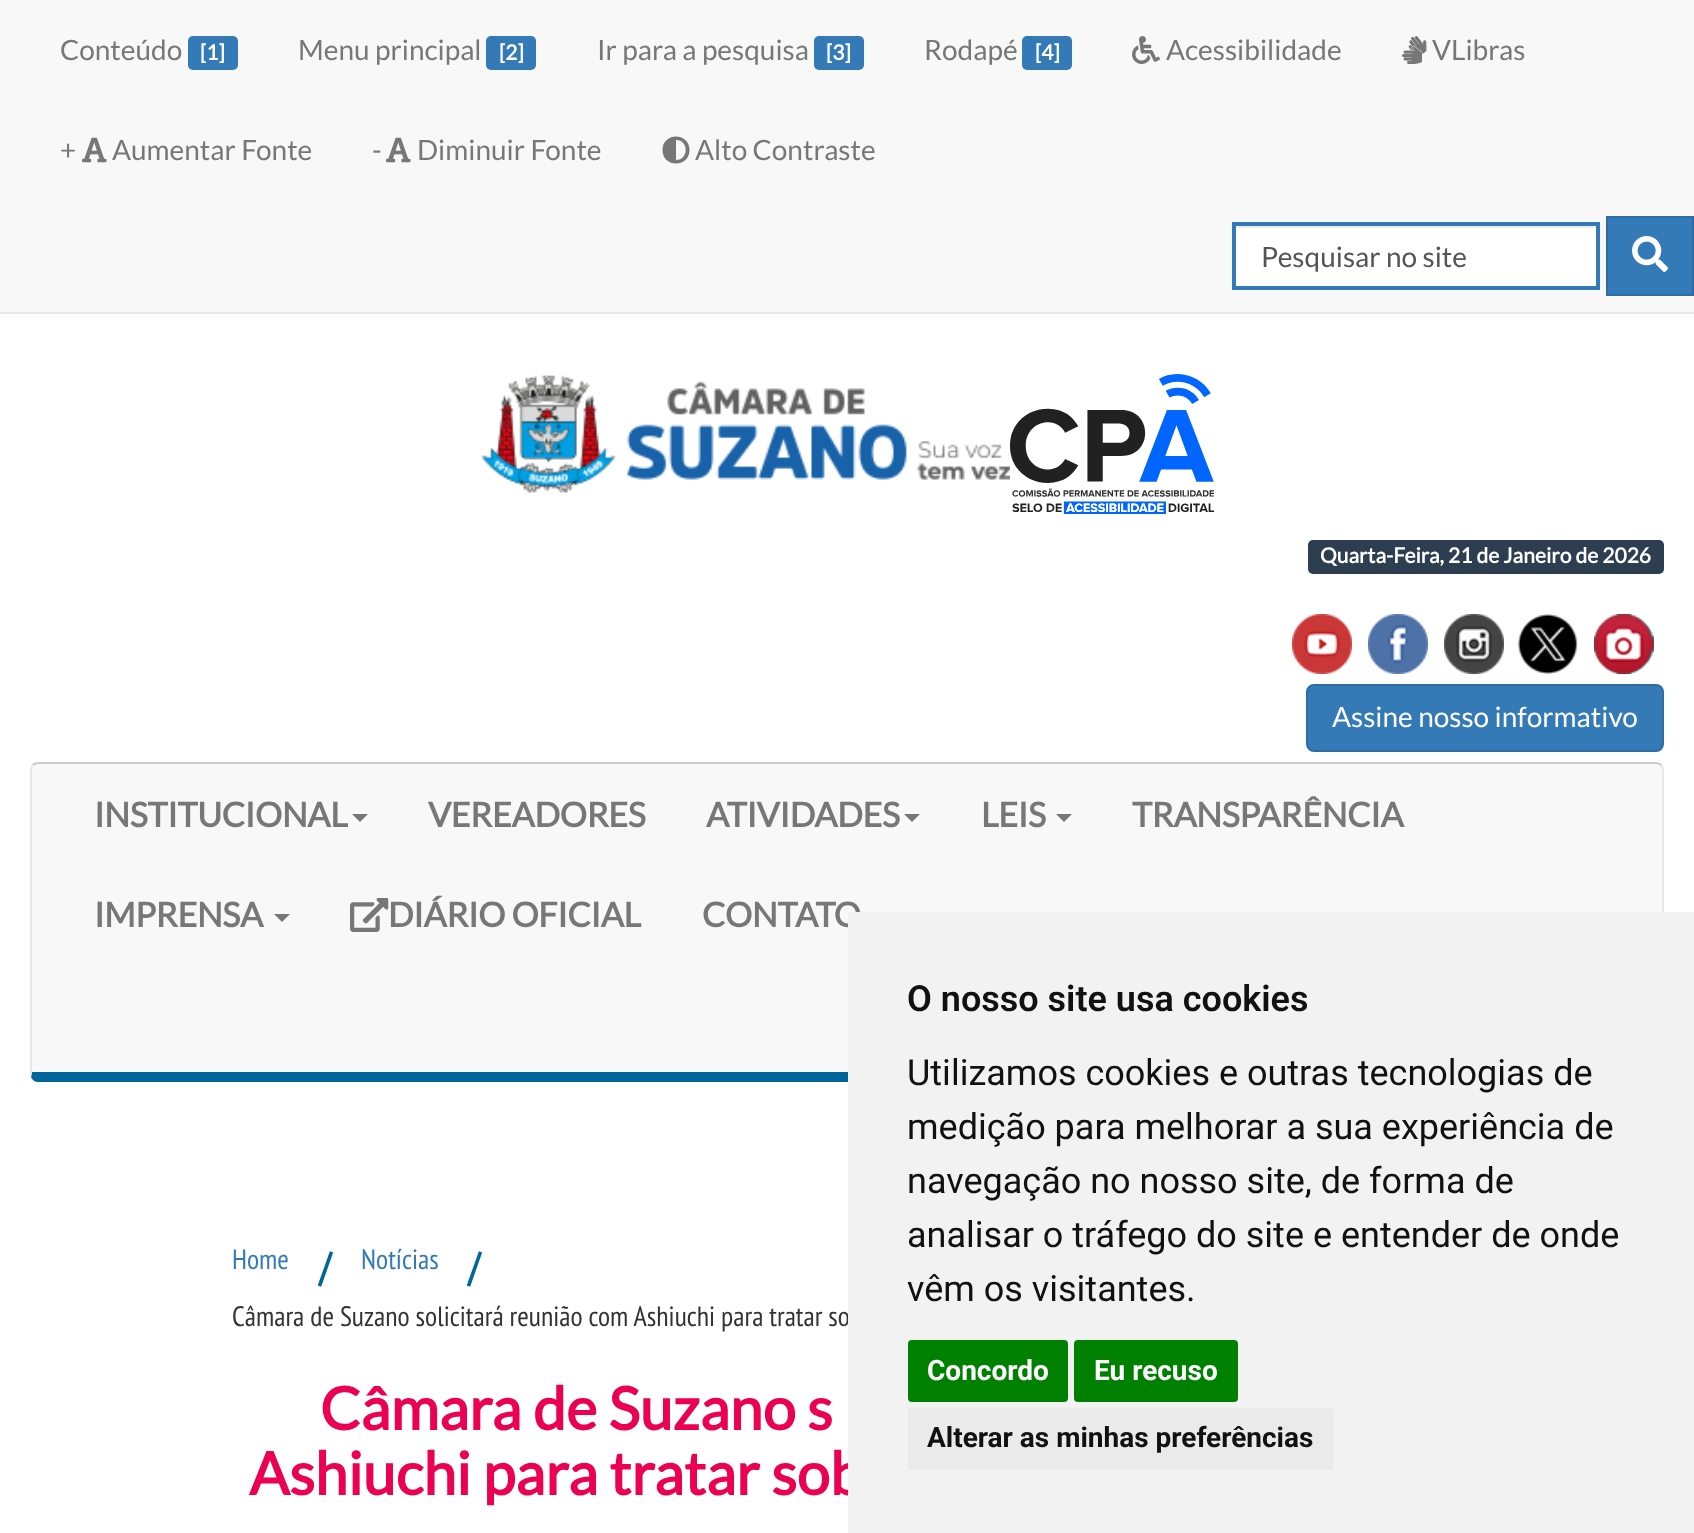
<!DOCTYPE html>
<meta charset="utf-8">
<style>body { margin: 0 } canvas { display: block }</style>
<canvas id="canvas" width="1694" height="1533"></canvas>
<script type="module">
  const canvas = document.getElementById("canvas");
  const g = canvas.getContext("2d");
  g.miterLimit = 4;
  g.fontKerning = "normal";
  function drawText(s, x, y, [font, color]) {
    g.font = font;
    g.fillStyle = color;
    g.fillText(s, x, y);
  }
  function fillBox(x, y, w, h, color) {
    g.fillStyle = color;
    g.fillRect(x, y, w, h);
  }
  function fillRounded(x, y, w, h, r, color) {
    g.fillStyle = color;
    g.beginPath();
    g.roundRect(x, y, w, h, r);
    g.fill();
  }
  async function drawPicture(src, x, y, w, h) {
    const img = new Image();
    img.src = src;
    await img.decode();
    g.drawImage(img, x, y, w, h);
  }

  const s1 = ["28px Lato", "#777777"];
  const s2 = ["bold 21px Lato", "#FFFFFF"];
  const s3 = ["28px Lato", "#555555"];
  const s4 = ["28px Lato", "#FFFFFF"];
  const s5 = ["bold 34px Lato", "#777777"];
  const s6 = ["28px PT Sans Narrow", "#337AB7"];
  const s7 = ["bold 40px PT Sans Narrow", "#006699"];
  const s8 = ["28px PT Sans Narrow", "#333333"];
  const s9 = ["bold 59.1px Lato", "#EB0052"];
  const s10 = ["600 36px Roboto", "#111111"];
  const s11 = ["36px Roboto", "#111111"];
  const s12 = ["bold 28px Roboto", "#FFFFFF"];
  const s13 = ["bold 28px Roboto", "#111111"];

  fillBox(0, 0, 1694, 1533, "#FFFFFF");
  fillBox(0, 0, 1694, 312, "#F8F8F8");
  fillBox(0, 312, 1694, 2, "#E7E7E7");
  drawText("Conteúdo", 60, 60, s1);
  fillRounded(188, 36, 50, 34, 5, "#337AB7");
  drawText("[1]", 200, 60, s2);
  drawText("Menu principal", 298, 60, s1);
  fillRounded(486, 36, 50, 34, 5, "#337AB7");
  drawText("[2]", 499, 60, s2);
  drawText("Ir para a pesquisa", 597, 60, s1);
  fillRounded(814, 36, 50, 34, 5, "#337AB7");
  drawText("[3]", 826, 60, s2);
  drawText("Rodapé", 924, 60, s1);
  fillRounded(1022, 36, 50, 34, 5, "#337AB7");
  drawText("[4]", 1035, 60, s2);
  await drawPicture("pic1.png", 1132, 36, 28, 28);
  drawText("Acessibilidade", 1166, 60, s1);
  await drawPicture("pic2.png", 1402, 36, 25, 28);
  drawText("VLibras", 1432, 60, s1);
  drawText("+", 60, 160, s1);
  await drawPicture("pic3.png", 82, 137, 25, 26);
  drawText("Aumentar Fonte", 112, 160, s1);
  drawText("-", 372, 160, s1);
  await drawPicture("pic3.png", 386, 137, 25, 26);
  drawText("Diminuir Fonte", 417, 160, s1);
  g.beginPath();
  g.moveTo(662.5, 150);
  g.bezierCurveTo(662.5, 168, 689.5, 168, 689.5, 150);
  g.bezierCurveTo(689.5, 132, 662.5, 132, 662.5, 150);
  g.closePath();
  g.moveTo(676, 160);
  g.lineTo(676, 140);
  g.bezierCurveTo(689, 140, 689, 160, 676, 160);
  g.closePath();
  g.fill();
  drawText("Alto Contraste", 695, 160, s1);
  fillBox(1236, 228, 360, 58, "#FFFFFF");
  fillBox(1236, 226, 360, 2, "#ECECEC");
  g.strokeStyle = "#337AB7";
  g.lineWidth = 4;
  g.strokeRect(1234, 224, 364, 64);
  drawText("Pesquisar no site", 1261, 267, s3);
  g.fillStyle = "#337AB7";
  g.beginPath();
  g.rect(1607, 217, 86, 78);
  g.fill();
  g.strokeStyle = "#2E6DA4";
  g.lineWidth = 2;
  g.stroke();
  await drawPicture("pic4.png", 1632, 236, 36, 36);
  await drawPicture("pic5.png", 481, 375, 529, 118);
  await drawPicture("pic6.png", 1010, 374, 204, 140);
  fillRounded(1308, 540, 356, 34, 5, "#2D3E50");
  drawText("Quarta-Feira, 21 de Janeiro de 2026", 1320, 563, s2);
  await drawPicture("pic7.png", 1292, 614, 60, 60);
  await drawPicture("pic8.png", 1368, 614, 60, 60);
  await drawPicture("pic9.png", 1444, 614, 60, 60);
  await drawPicture("pic10.png", 1518, 614, 60, 60);
  await drawPicture("pic11.png", 1594, 614, 60, 60);
  g.fillStyle = "#337AB7";
  g.beginPath();
  g.roundRect(1307, 685, 356, 66, 7);
  g.fill();
  g.stroke();
  drawText("Assine nosso informativo", 1332, 727, s4);
  g.fillStyle = "#F8F8F8";
  g.beginPath();
  g.moveTo(38, 764);
  g.lineTo(1656, 764);
  g.bezierCurveTo(1659, 764, 1662, 767, 1662, 770);
  g.lineTo(1662, 1072);
  g.lineTo(32, 1072);
  g.lineTo(32, 770);
  g.bezierCurveTo(32, 767, 35, 764, 38, 764);
  g.closePath();
  g.fill();
  g.fillStyle = "#CCCCCC";
  g.beginPath();
  g.moveTo(38, 762);
  g.bezierCurveTo(36, 762, 34, 763, 32, 764);
  g.lineTo(34, 766);
  g.bezierCurveTo(35, 765, 36, 764, 38, 764);
  g.lineTo(1656, 764);
  g.bezierCurveTo(1658, 764, 1659, 765, 1660, 766);
  g.lineTo(1662, 764);
  g.bezierCurveTo(1660, 763, 1658, 762, 1656, 762);
  g.closePath();
  g.fill();
  g.fillStyle = "#E7E7E7";
  g.beginPath();
  g.moveTo(1664, 1074);
  g.lineTo(1664, 770);
  g.bezierCurveTo(1664, 768, 1663, 766, 1662, 764);
  g.lineTo(1660, 766);
  g.bezierCurveTo(1661, 767, 1662, 768, 1662, 770);
  g.lineTo(1662, 1072);
  g.lineTo(1663, 1077);
  g.closePath();
  g.fill();
  g.fillStyle = "#006699";
  g.beginPath();
  g.moveTo(38, 1082);
  g.lineTo(1656, 1082);
  g.bezierCurveTo(1659, 1082, 1662, 1080, 1663, 1077);
  g.lineTo(1662, 1072);
  g.lineTo(32, 1072);
  g.lineTo(31, 1077);
  g.bezierCurveTo(32, 1080, 35, 1082, 38, 1082);
  g.closePath();
  g.fill();
  g.fillStyle = "#E7E7E7";
  g.beginPath();
  g.moveTo(30, 770);
  g.lineTo(30, 1074);
  g.lineTo(31, 1077);
  g.lineTo(32, 1072);
  g.lineTo(32, 770);
  g.bezierCurveTo(32, 768, 33, 767, 34, 766);
  g.lineTo(32, 764);
  g.bezierCurveTo(31, 766, 30, 768, 30, 770);
  g.closePath();
  g.fill();
  g.letterSpacing = "-0.25px";
  drawText("INSTITUCIONAL", 94, 827, s5);
  g.beginPath();
  g.moveTo(352, 814);
  g.lineTo(368, 814);
  g.lineTo(360, 822);
  g.closePath();
  g.fill();
  drawText("VEREADORES", 428, 827, s5);
  drawText("ATIVIDADES", 706, 827, s5);
  g.beginPath();
  g.moveTo(904, 814);
  g.lineTo(920, 814);
  g.lineTo(912, 822);
  g.closePath();
  g.fill();
  drawText("LEIS", 981, 827, s5);
  g.beginPath();
  g.moveTo(1056, 814);
  g.lineTo(1072, 814);
  g.lineTo(1064, 822);
  g.closePath();
  g.fill();
  drawText("TRANSPARÊNCIA", 1132, 827, s5);
  drawText("IMPRENSA", 94, 927, s5);
  g.beginPath();
  g.moveTo(274, 914);
  g.lineTo(290, 914);
  g.lineTo(282, 922);
  g.closePath();
  g.fill();
  await drawPicture("pic12.png", 350, 898, 39, 34);
  drawText("DIÁRIO OFICIAL", 388, 927, s5);
  drawText("CONTATO", 702, 927, s5);
  g.letterSpacing = "0px";
  drawText("Home", 232, 1269, s6);
  drawText("/", 319, 1281, s7);
  drawText("Notícias", 361, 1269, s6);
  drawText("/", 468, 1281, s7);
  drawText("Câmara de Suzano solicitará reunião com Ashiuchi para tratar so", 232, 1326, s8);
  drawText("Câmara de Suzano s", 320, 1430, s9);
  drawText("Ashiuchi para tratar sob", 249, 1495, s9);
  fillBox(848, 912, 846, 621, "#F2F2F2");
  drawText("O nosso site usa cookies", 907, 1011, s10);
  drawText("Utilizamos cookies e outras tecnologias de", 907, 1085, s11);
  drawText("medição para melhorar a sua experiência de", 907, 1139, s11);
  drawText("navegação no nosso site, de forma de", 907, 1193, s11);
  drawText("analisar o tráfego do site e entender de onde", 907, 1247, s11);
  drawText("vêm os visitantes.", 907, 1301, s11);
  fillRounded(908, 1340, 160, 62, 4, "#008000");
  drawText("Concordo", 927, 1380, s12);
  fillRounded(1074, 1340, 164, 62, 4, "#008000");
  drawText("Eu recuso", 1094, 1380, s12);
  fillRounded(908, 1408, 426, 62, 4, "#EAEAEA");
  drawText("Alterar as minhas preferências", 927, 1447, s13);
</script>
